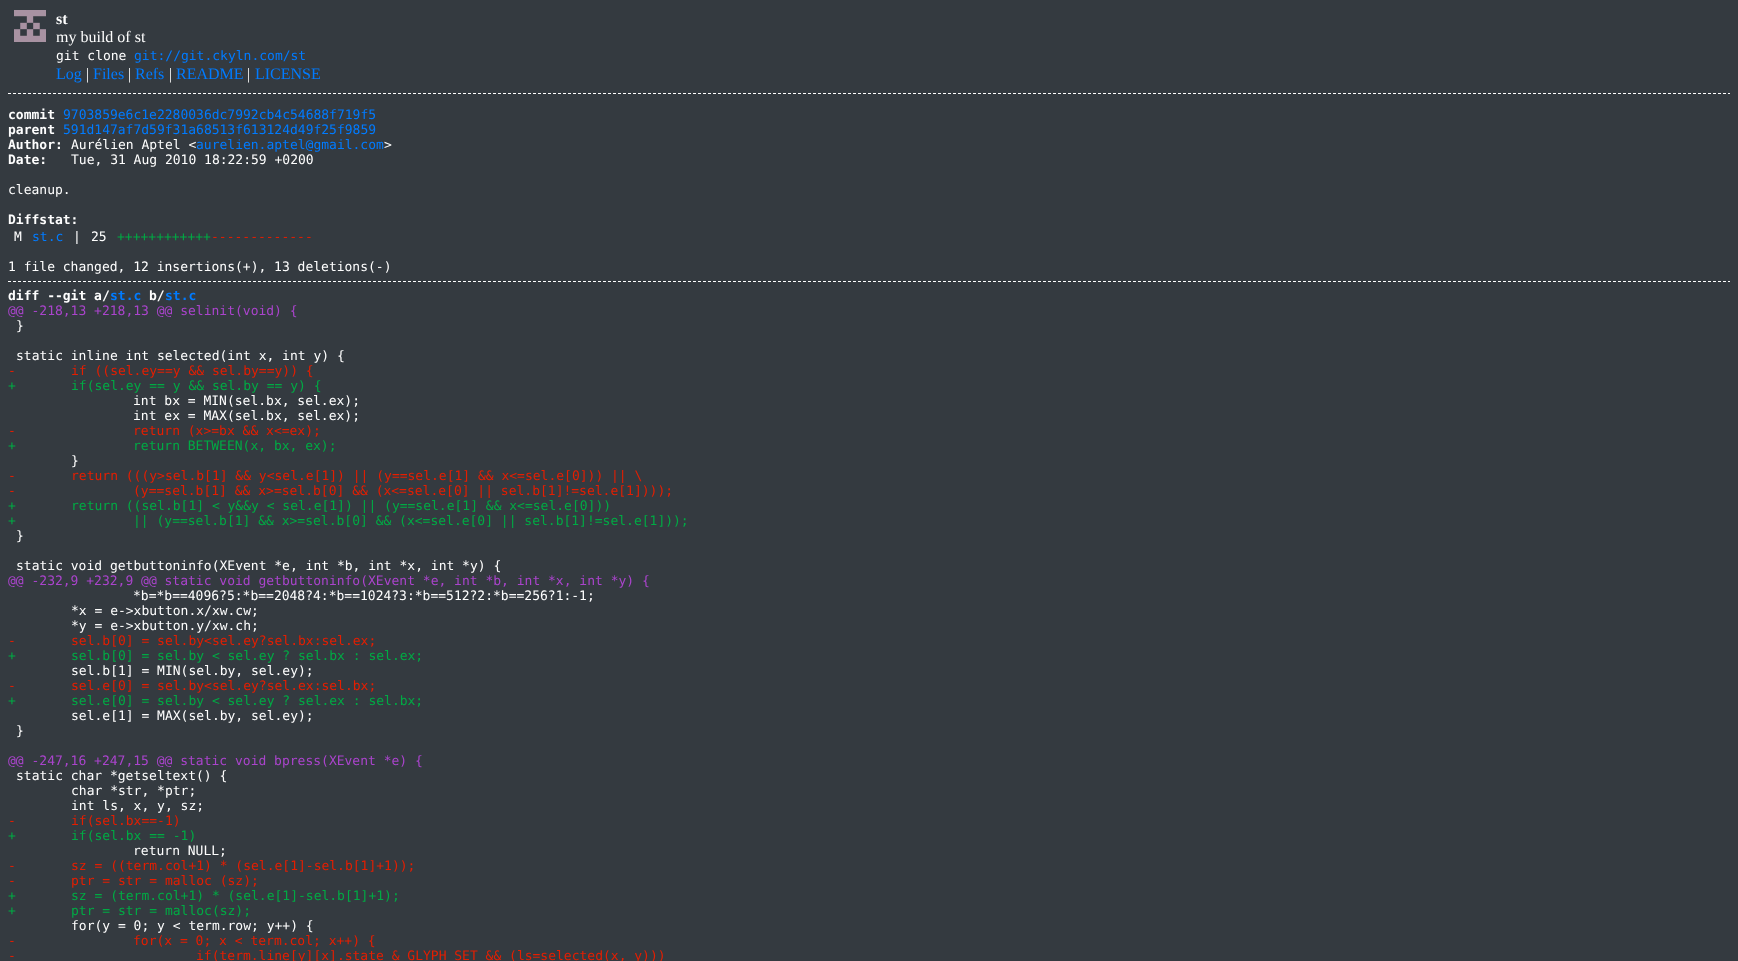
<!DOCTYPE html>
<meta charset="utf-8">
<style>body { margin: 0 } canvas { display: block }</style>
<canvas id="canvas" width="1738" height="961"></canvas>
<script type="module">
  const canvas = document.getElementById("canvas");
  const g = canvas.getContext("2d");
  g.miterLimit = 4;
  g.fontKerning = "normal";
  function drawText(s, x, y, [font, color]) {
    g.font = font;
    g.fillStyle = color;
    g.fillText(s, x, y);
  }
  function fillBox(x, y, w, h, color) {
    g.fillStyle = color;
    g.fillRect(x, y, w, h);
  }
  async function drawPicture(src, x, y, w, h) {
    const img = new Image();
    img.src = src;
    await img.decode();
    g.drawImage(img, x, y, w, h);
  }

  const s1 = ["bold 16px Liberation Serif", "#FEFEFE"];
  const s2 = ["16px Liberation Serif", "#FEFEFE"];
  const s3 = ["13px DejaVu Sans Mono", "#FEFEFE"];
  const s4 = ["13px DejaVu Sans Mono", "#007BFF"];
  const s5 = ["16px Liberation Serif", "#007BFF"];
  const s6 = ["bold 13px DejaVu Sans Mono", "#FEFEFE"];
  const s7 = ["13px DejaVu Sans Mono", "#00AA44"];
  const s8 = ["13px DejaVu Sans Mono", "#E51E00"];
  const s9 = ["bold 13px DejaVu Sans Mono", "#007BFF"];
  const s10 = ["13px DejaVu Sans Mono", "#AA44CC"];

  fillBox(0, 0, 1738, 961, "#343A40");
  await drawPicture("pic1.png", 14, 10, 32, 32);
  drawText("st", 56, 24, s1);
  drawText("my build of st", 56, 42, s2);
  drawText("git clone", 56, 60, s3);
  drawText("git://git.ckyln.com/st", 134, 60, s4);
  drawText("Log", 56, 79, s5);
  drawText("|", 86, 79, s2);
  drawText("Files", 93, 79, s5);
  drawText("|", 128, 79, s2);
  drawText("Refs", 135, 79, s5);
  drawText("|", 169, 79, s2);
  drawText("README", 176, 79, s5);
  drawText("|", 247, 79, s2);
  drawText("LICENSE", 255, 79, s5);
  g.beginPath();
  g.moveTo(8, 93.5);
  g.lineTo(1730, 93.5);
  g.strokeStyle = "#FEFEFE";
  g.setLineDash([3, 2]);
  g.stroke();
  drawText("commit", 8, 119, s6);
  drawText("9703859e6c1e2280036dc7992cb4c54688f719f5", 63, 119, s4);
  drawText("parent", 8, 134, s6);
  drawText("591d147af7d59f31a68513f613124d49f25f9859", 63, 134, s4);
  drawText("Author:", 8, 149, s6);
  drawText("Aurélien Aptel <", 71, 149, s3);
  drawText("aurelien.aptel@gmail.com", 196, 149, s4);
  drawText(">", 384, 149, s3);
  drawText("Date:", 8, 164, s6);
  drawText("Tue, 31 Aug 2010 18:22:59 +0200", 71, 164, s3);
  drawText("cleanup.", 8, 194, s3);
  drawText("Diffstat:", 8, 224, s6);
  drawText("M", 14, 241, s3);
  drawText("st.c", 32, 241, s4);
  drawText("|", 73, 241, s3);
  drawText("25", 91, 241, s3);
  drawText("++++++++++++", 117, 241, s7);
  drawText("-------------", 211, 241, s8);
  drawText("1 file changed, 12 insertions(+), 13 deletions(-)", 8, 271, s3);
  g.beginPath();
  g.moveTo(8, 281.5);
  g.lineTo(1730, 281.5);
  g.stroke();
  drawText("diff --git a/", 8, 300, s6);
  drawText("st.c", 110, 300, s9);
  drawText("b/", 149, 300, s6);
  drawText("st.c", 165, 300, s9);
  drawText("@@ -218,13 +218,13 @@ selinit(void) {", 8, 315, s10);
  drawText("}", 16, 330, s3);
  drawText("static inline int selected(int x, int y) {", 16, 360, s3);
  drawText("-", 8, 375, s8);
  drawText("if ((sel.ey==y && sel.by==y)) {", 71, 375, s8);
  drawText("+", 8, 390, s7);
  drawText("if(sel.ey == y && sel.by == y) {", 71, 390, s7);
  drawText("int bx = MIN(sel.bx, sel.ex);", 133, 405, s3);
  drawText("int ex = MAX(sel.bx, sel.ex);", 133, 420, s3);
  drawText("-", 8, 435, s8);
  drawText("return (x>=bx && x<=ex);", 133, 435, s8);
  drawText("+", 8, 450, s7);
  drawText("return BETWEEN(x, bx, ex);", 133, 450, s7);
  drawText("}", 71, 465, s3);
  drawText("-", 8, 480, s8);
  drawText("return (((y>sel.b[1] && y<sel.e[1]) || (y==sel.e[1] && x<=sel.e[0])) || \\", 71, 480, s8);
  drawText("-", 8, 495, s8);
  drawText("(y==sel.b[1] && x>=sel.b[0] && (x<=sel.e[0] || sel.b[1]!=sel.e[1])));", 133, 495, s8);
  drawText("+", 8, 510, s7);
  drawText("return ((sel.b[1] < y&&y < sel.e[1]) || (y==sel.e[1] && x<=sel.e[0]))", 71, 510, s7);
  drawText("+", 8, 525, s7);
  drawText("|| (y==sel.b[1] && x>=sel.b[0] && (x<=sel.e[0] || sel.b[1]!=sel.e[1]));", 133, 525, s7);
  drawText("}", 16, 540, s3);
  drawText("static void getbuttoninfo(XEvent *e, int *b, int *x, int *y) {", 16, 570, s3);
  drawText("@@ -232,9 +232,9 @@ static void getbuttoninfo(XEvent *e, int *b, int *x, int *y) {", 8, 585, s10);
  drawText("*b=*b==4096?5:*b==2048?4:*b==1024?3:*b==512?2:*b==256?1:-1;", 133, 600, s3);
  drawText("*x = e->xbutton.x/xw.cw;", 71, 615, s3);
  drawText("*y = e->xbutton.y/xw.ch;", 71, 630, s3);
  drawText("-", 8, 645, s8);
  drawText("sel.b[0] = sel.by<sel.ey?sel.bx:sel.ex;", 71, 645, s8);
  drawText("+", 8, 660, s7);
  drawText("sel.b[0] = sel.by < sel.ey ? sel.bx : sel.ex;", 71, 660, s7);
  drawText("sel.b[1] = MIN(sel.by, sel.ey);", 71, 675, s3);
  drawText("-", 8, 690, s8);
  drawText("sel.e[0] = sel.by<sel.ey?sel.ex:sel.bx;", 71, 690, s8);
  drawText("+", 8, 705, s7);
  drawText("sel.e[0] = sel.by < sel.ey ? sel.ex : sel.bx;", 71, 705, s7);
  drawText("sel.e[1] = MAX(sel.by, sel.ey);", 71, 720, s3);
  drawText("}", 16, 735, s3);
  drawText("@@ -247,16 +247,15 @@ static void bpress(XEvent *e) {", 8, 765, s10);
  drawText("static char *getseltext() {", 16, 780, s3);
  drawText("char *str, *ptr;", 71, 795, s3);
  drawText("int ls, x, y, sz;", 71, 810, s3);
  drawText("-", 8, 825, s8);
  drawText("if(sel.bx==-1)", 71, 825, s8);
  drawText("+", 8, 840, s7);
  drawText("if(sel.bx == -1)", 71, 840, s7);
  drawText("return NULL;", 133, 855, s3);
  drawText("-", 8, 870, s8);
  drawText("sz = ((term.col+1) * (sel.e[1]-sel.b[1]+1));", 71, 870, s8);
  drawText("-", 8, 885, s8);
  drawText("ptr = str = malloc (sz);", 71, 885, s8);
  drawText("+", 8, 900, s7);
  drawText("sz = (term.col+1) * (sel.e[1]-sel.b[1]+1);", 71, 900, s7);
  drawText("+", 8, 915, s7);
  drawText("ptr = str = malloc(sz);", 71, 915, s7);
  drawText("for(y = 0; y < term.row; y++) {", 71, 930, s3);
  drawText("-", 8, 945, s8);
  drawText("for(x = 0; x < term.col; x++) {", 133, 945, s8);
  drawText("-", 8, 960, s8);
  drawText("if(term.line[y][x].state & GLYPH_SET && (ls=selected(x, y)))", 196, 960, s8);
</script>
